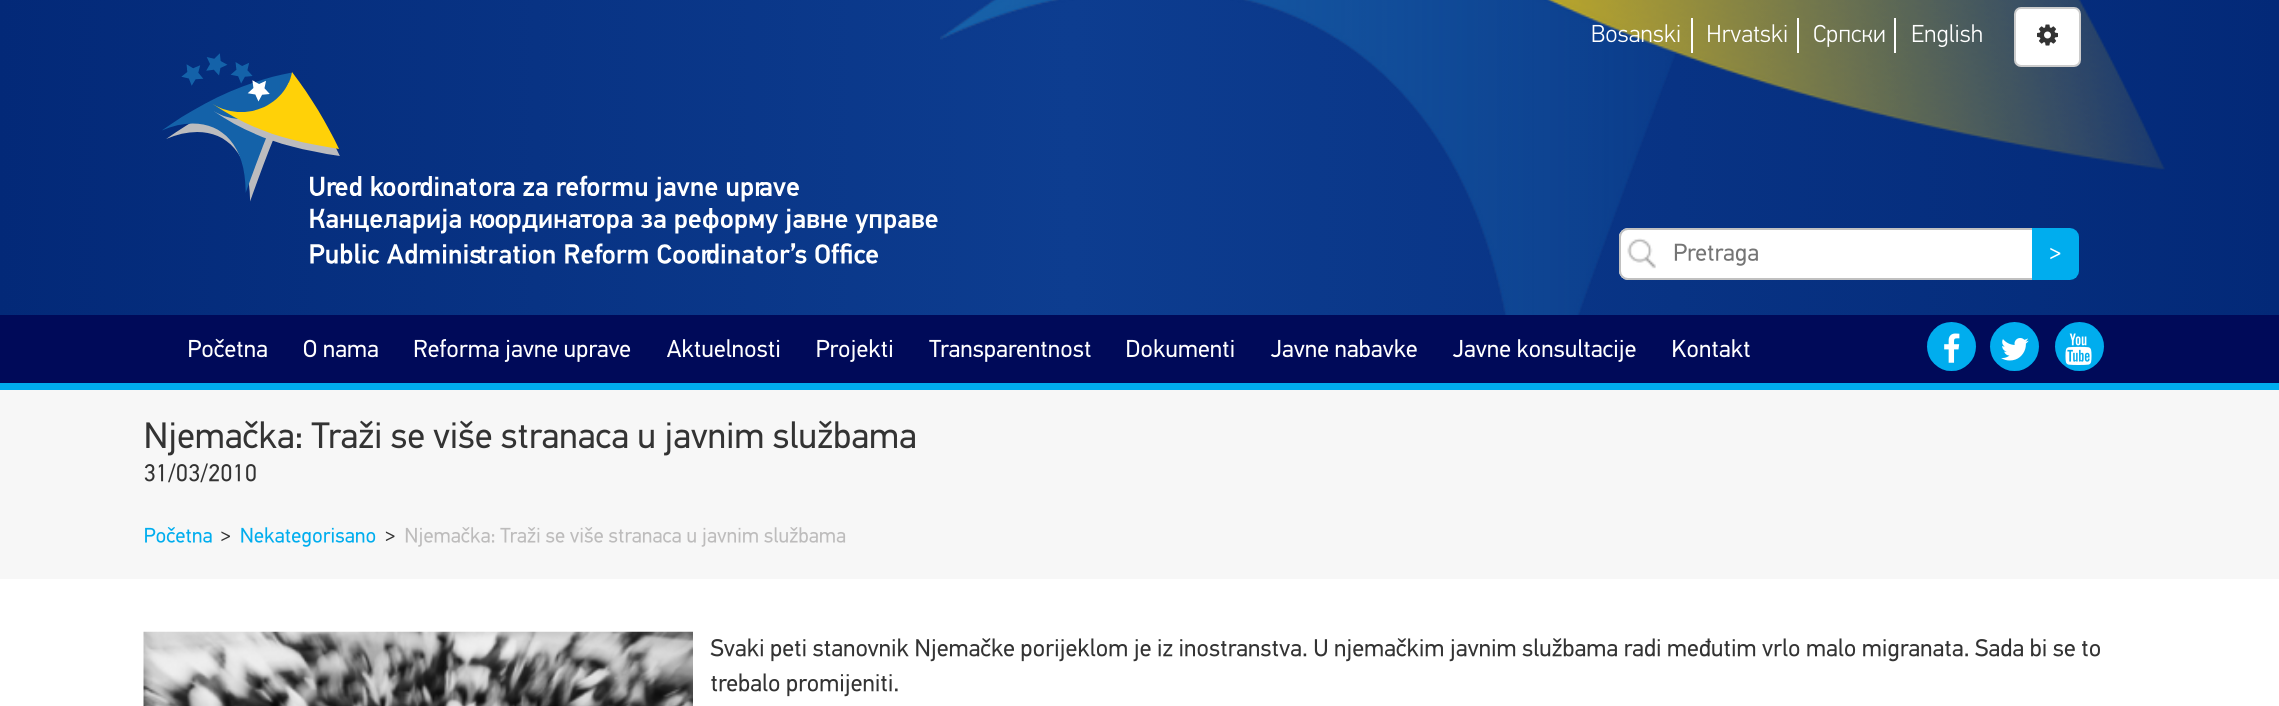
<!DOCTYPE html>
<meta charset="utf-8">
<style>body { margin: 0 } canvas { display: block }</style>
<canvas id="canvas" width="2279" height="706"></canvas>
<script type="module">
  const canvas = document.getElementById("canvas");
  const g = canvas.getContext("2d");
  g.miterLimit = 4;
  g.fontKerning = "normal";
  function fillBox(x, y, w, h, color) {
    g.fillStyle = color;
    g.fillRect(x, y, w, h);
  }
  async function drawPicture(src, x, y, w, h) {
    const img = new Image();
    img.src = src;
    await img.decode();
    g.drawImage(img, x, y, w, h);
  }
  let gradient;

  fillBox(0, 0, 2279, 706, "#FFFFFF");
  gradient = g.createLinearGradient(0, 158, 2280, 157);
  gradient.addColorStop(0, "#032978");
  gradient.addColorStop(0.47, "#0D3D90");
  gradient.addColorStop(1, "#032978");
  g.fillStyle = gradient;
  g.fillRect(0, 0, 2279, 315);
  await drawPicture("pic1.png", 940, 0, 1225, 315);
  await drawPicture("pic2.png", 162, 53, 776, 211);
  fillBox(1691, 18, 2, 35, "#FFFFFF");
  await drawPicture("pic3.png", 1592, 24, 88, 19);
  fillBox(1797, 18, 2, 35, "#FFFFFF");
  await drawPicture("pic4.png", 1708, 24, 79, 19);
  fillBox(1894, 18, 2, 35, "#FFFFFF");
  await drawPicture("pic5.png", 1814, 24, 71, 23);
  await drawPicture("pic6.png", 1912, 24, 70, 23);
  g.beginPath();
  g.roundRect(2015, 8, 65, 58, 6);
  g.fill();
  g.strokeStyle = "#CCCCCC";
  g.lineWidth = 2;
  g.stroke();
  await drawPicture("pic7.png", 2037, 24, 21, 22);
  g.beginPath();
  g.roundRect(1619, 228, 415, 52, [9, 0, 0, 9]);
  g.fill();
  await drawPicture("pic8.png", 1627, 238, 29, 31);
  g.beginPath();
  g.roundRect(1620, 229, 413, 50, [8, 0, 0, 8]);
  g.strokeStyle = "#C0C0C0";
  g.stroke();
  await drawPicture("pic9.png", 1674, 243, 84, 23);
  g.fillStyle = "#00ADEE";
  g.beginPath();
  g.roundRect(2032, 228, 47, 52, [0, 9, 9, 0]);
  g.fill();
  await drawPicture("pic10.png", 2050, 247, 11, 13);
  fillBox(0, 315, 2279, 68, "#000A59");
  fillBox(0, 383, 2279, 7, "#00ADEE");
  await drawPicture("pic11.png", 189, 338, 78, 20);
  await drawPicture("pic12.png", 303, 339, 75, 19);
  await drawPicture("pic13.png", 414, 339, 217, 23);
  await drawPicture("pic14.png", 667, 339, 113, 19);
  await drawPicture("pic15.png", 817, 339, 75, 23);
  await drawPicture("pic16.png", 929, 339, 162, 23);
  await drawPicture("pic17.png", 1127, 339, 107, 19);
  await drawPicture("pic18.png", 1270, 339, 147, 19);
  await drawPicture("pic19.png", 1452, 339, 184, 23);
  await drawPicture("pic20.png", 1673, 339, 77, 19);
  g.beginPath();
  g.arc(1951.5, 346.5, 24.5, 0, Math.PI * 2);
  g.fill();
  await drawPicture("pic21.png", 1944, 333, 16, 30);
  g.beginPath();
  g.arc(2014.5, 346.5, 24.5, 0, Math.PI * 2);
  g.fill();
  await drawPicture("pic22.png", 2001, 338, 28, 23);
  g.beginPath();
  g.arc(2079.5, 346.5, 24.5, 0, Math.PI * 2);
  g.fill();
  await drawPicture("pic23.png", 2065, 333, 27, 32);
  fillBox(0, 390, 2279, 189, "#F7F7F7");
  await drawPicture("pic24.png", 146, 420, 769, 36);
  await drawPicture("pic25.png", 144, 463, 112, 20);
  await drawPicture("pic26.png", 145, 527, 67, 16);
  await drawPicture("pic27.png", 221, 531, 9, 11);
  await drawPicture("pic28.png", 241, 527, 135, 20);
  await drawPicture("pic29.png", 385, 531, 10, 10);
  await drawPicture("pic30.png", 405, 527, 441, 20);
  await drawPicture("pic31.png", 143, 631, 550, 75);
  await drawPicture("pic32.png", 710, 638, 1390, 24);
  await drawPicture("pic33.png", 711, 673, 187, 24);
</script>
